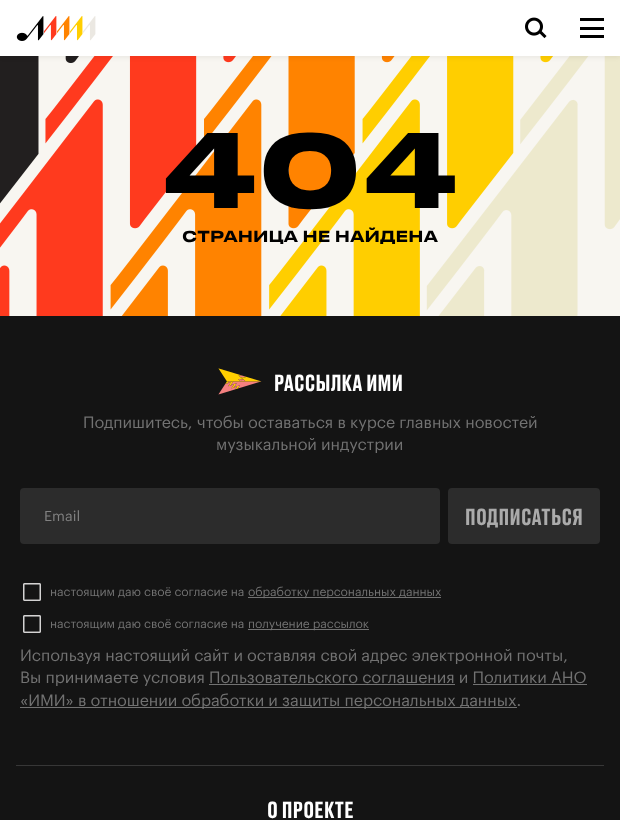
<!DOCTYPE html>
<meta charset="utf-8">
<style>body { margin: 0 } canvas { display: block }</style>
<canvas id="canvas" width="620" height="820"></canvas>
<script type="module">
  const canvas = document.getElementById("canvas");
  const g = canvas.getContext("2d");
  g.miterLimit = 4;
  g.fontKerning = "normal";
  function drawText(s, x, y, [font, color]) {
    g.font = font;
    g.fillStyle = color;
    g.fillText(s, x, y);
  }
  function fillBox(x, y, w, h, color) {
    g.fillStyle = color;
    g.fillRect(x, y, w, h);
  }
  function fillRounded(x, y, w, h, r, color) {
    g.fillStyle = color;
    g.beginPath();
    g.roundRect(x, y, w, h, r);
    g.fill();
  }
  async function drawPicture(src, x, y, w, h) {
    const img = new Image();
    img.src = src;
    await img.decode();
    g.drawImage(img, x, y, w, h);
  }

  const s1 = ["bold 100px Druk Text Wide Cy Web", "#000000"];
  const s2 = ["500 15px Druk Text Wide Cy Web", "#000000"];
  const s3 = ["500 22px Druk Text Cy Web", "#FFFFFF"];
  const s4 = ["16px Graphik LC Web", "#727272"];
  const s5 = ["14px Graphik LC Web", "#828282"];
  const s6 = ["500 22px Druk Text Cy Web", "#ABABAB"];
  const s7 = ["12px Graphik LC Web", "#727272"];

  fillBox(0, 0, 620, 820, "#F8F6F1");
  await drawPicture("pic1.png", 0, 56, 620, 260);
  g.fillStyle = "rgba(0, 0, 0, 0.05)";
  g.filter = "blur(2px)";
  g.beginPath();
  g.rect(0, 2, 620, 56);
  g.fill();
  g.filter = "none";
  fillBox(0, 0, 620, 56, "#FFFFFF");
  await drawPicture("pic2.png", 16, 16, 80, 25);
  await drawPicture("pic3.png", 525, 17, 22, 22);
  fillBox(580, 18, 24, 3, "#000000");
  fillBox(580, 27, 24, 3, "#000000");
  fillBox(580, 35, 24, 3, "#000000");
  drawText("404", 161, 208, s1);
  drawText("СТРАНИЦА НЕ НАЙДЕНА", 182, 242, s2);
  fillBox(0, 316, 620, 504, "#141414");
  await drawPicture("pic4.png", 218, 368, 44, 27);
  g.letterSpacing = "0.25px";
  drawText("РАССЫЛКА ИМИ", 274, 391, s3);
  g.letterSpacing = "0px";
  drawText("Подпишитесь, чтобы оставаться в курсе главных новостей", 83, 428, s4);
  drawText("музыкальной индустрии", 216, 450, s4);
  fillRounded(20, 488, 420, 56, 4, "#2C2C2C");
  drawText("Email", 44, 521, s5);
  fillRounded(448, 488, 152, 56, 4, "#2C2C2C");
  g.letterSpacing = "0.25px";
  drawText("ПОДПИСАТЬСЯ", 465, 525, s6);
  await drawPicture("pic5.png", 23, 583, 18, 18);
  g.letterSpacing = "0px";
  drawText("настоящим даю своё согласие на", 50, 596, s7);
  fillBox(248, 597, 193, 1, "#727272");
  drawText("обработку персональных данных", 248, 596, s7);
  await drawPicture("pic5.png", 23, 615, 18, 18);
  drawText("настоящим даю своё согласие на", 50, 628, s7);
  fillBox(248, 629, 121, 1, "#727272");
  drawText("получение рассылок", 248, 628, s7);
  drawText("Используя настоящий сайт и оставляя свой адрес электронной почты,", 20, 661, s4);
  drawText("Вы принимаете условия Пользовательского соглашения и Политики АНО", 20, 683, s4);
  fillBox(209, 684, 246, 1, "#727272");
  fillBox(20, 707, 497, 1, "#727272");
  drawText("«ИМИ» в отношении обработки и защиты персональных данных.", 20, 706, s4);
  fillBox(473, 684, 114, 1, "#727272");
  fillBox(16, 765, 588, 1, "#373737");
  g.letterSpacing = "0.25px";
  drawText("О ПРОЕКТЕ", 267, 818, s3);
</script>
